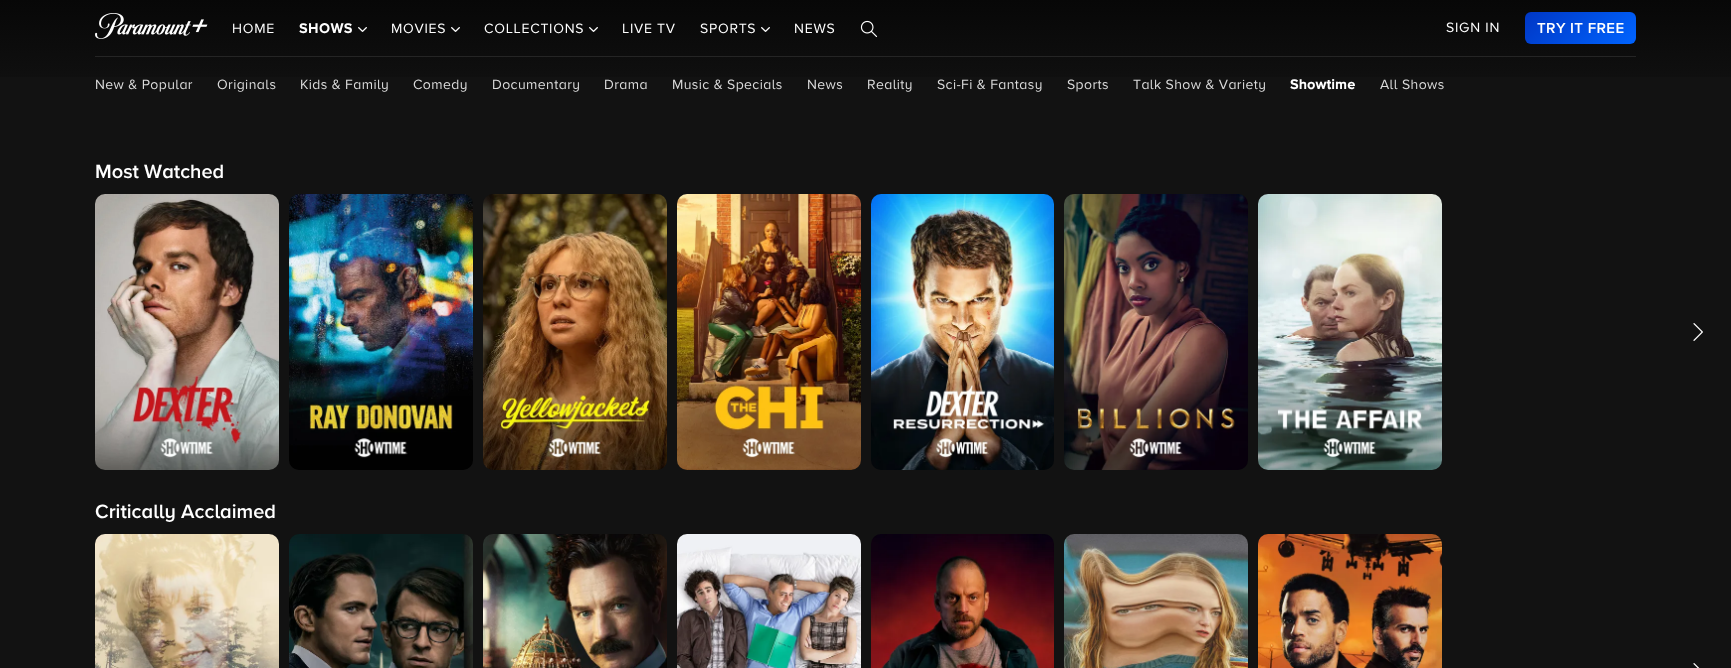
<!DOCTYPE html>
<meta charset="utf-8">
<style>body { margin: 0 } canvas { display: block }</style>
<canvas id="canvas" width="1731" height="668"></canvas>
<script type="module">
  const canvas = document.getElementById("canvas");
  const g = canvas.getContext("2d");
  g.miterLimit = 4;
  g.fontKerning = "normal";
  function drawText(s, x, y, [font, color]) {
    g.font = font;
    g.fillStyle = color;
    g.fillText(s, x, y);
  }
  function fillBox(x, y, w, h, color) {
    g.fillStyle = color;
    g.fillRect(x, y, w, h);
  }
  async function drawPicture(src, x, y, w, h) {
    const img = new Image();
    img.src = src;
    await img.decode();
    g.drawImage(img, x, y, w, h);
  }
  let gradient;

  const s1 = ["14px 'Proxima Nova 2'", "#FFFFFF"];
  const s2 = ["bold 14px Proxima Nova", "#FFFFFF"];
  const s3 = ["15px Proxima Nova", "#FFFFFF"];
  const s4 = ["14px 'Proxima Nova 2'", "#DBDBDB"];
  const s5 = ["20px Proxima Nova", "#FFFFFF"];

  fillBox(0, 0, 1731, 668, "#121212");
  gradient = g.createLinearGradient(866, 0, 866, 100);
  gradient.addColorStop(0, "#070707");
  gradient.addColorStop(1, "#121212");
  g.fillStyle = gradient;
  g.fillRect(0, 0, 1731, 77);
  await drawPicture("pic1.png", 95, 13, 113, 26);
  g.letterSpacing = "0.75px";
  drawText("HOME", 232, 33, s1);
  drawText("SHOWS", 299, 33, s2);
  await drawPicture("pic2.png", 358, 27, 9, 5);
  drawText("MOVIES", 391, 33, s1);
  await drawPicture("pic2.png", 451, 27, 9, 5);
  drawText("COLLECTIONS", 484, 33, s1);
  await drawPicture("pic2.png", 589, 27, 9, 5);
  drawText("LIVE TV", 622, 33, s1);
  drawText("SPORTS", 700, 33, s1);
  await drawPicture("pic2.png", 761, 27, 9, 5);
  drawText("NEWS", 794, 33, s1);
  await drawPicture("pic3.png", 860, 20, 18, 18);
  drawText("SIGN IN", 1446, 32, s1);
  gradient = g.createLinearGradient(1545, -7.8, 1616, 64);
  gradient.addColorStop(0, "#0037C5");
  gradient.addColorStop(1, "#0064FF");
  g.fillStyle = gradient;
  g.beginPath();
  g.roundRect(1525, 12, 111, 32, 6);
  g.fill();
  g.letterSpacing = "0.4px";
  drawText("TRY IT FREE", 1537, 33, s3);
  fillBox(95, 56, 1541, 1, "#252525");
  drawText("New & Popular", 95, 89, s4);
  drawText("Originals", 217, 89, s4);
  drawText("Kids & Family", 300, 89, s4);
  drawText("Comedy", 413, 89, s4);
  drawText("Documentary", 492, 89, s4);
  drawText("Drama", 604, 89, s4);
  drawText("Music & Specials", 672, 89, s4);
  drawText("News", 807, 89, s4);
  drawText("Reality", 867, 89, s4);
  drawText("Sci-Fi & Fantasy", 937, 89, s4);
  drawText("Sports", 1067, 89, s4);
  drawText("Talk Show & Variety", 1133, 89, s4);
  drawText("Showtime", 1290, 89, s2);
  drawText("All Shows", 1380, 89, s4);
  g.letterSpacing = "0px";
  drawText("Most Watched", 95, 178, s5);
  await drawPicture("pic4.png", 95, 194, 184, 276);
  await drawPicture("pic5.png", 289, 194, 184, 276);
  await drawPicture("pic6.png", 483, 194, 184, 276);
  await drawPicture("pic7.png", 677, 194, 184, 276);
  await drawPicture("pic8.png", 871, 194, 183, 276);
  await drawPicture("pic9.png", 1064, 194, 184, 276);
  await drawPicture("pic10.png", 1258, 194, 184, 276);
  await drawPicture("pic11.png", 1693, 323, 10, 18);
  drawText("Critically Acclaimed", 95, 518, s5);
  await drawPicture("pic12.png", 95, 534, 184, 134);
  await drawPicture("pic13.png", 289, 534, 184, 134);
  await drawPicture("pic14.png", 483, 534, 184, 134);
  await drawPicture("pic15.png", 677, 534, 184, 134);
  await drawPicture("pic16.png", 871, 534, 183, 134);
  await drawPicture("pic17.png", 1064, 534, 184, 134);
  await drawPicture("pic18.png", 1258, 534, 184, 134);
  await drawPicture("pic19.png", 1693, 663, 7, 5);
</script>
